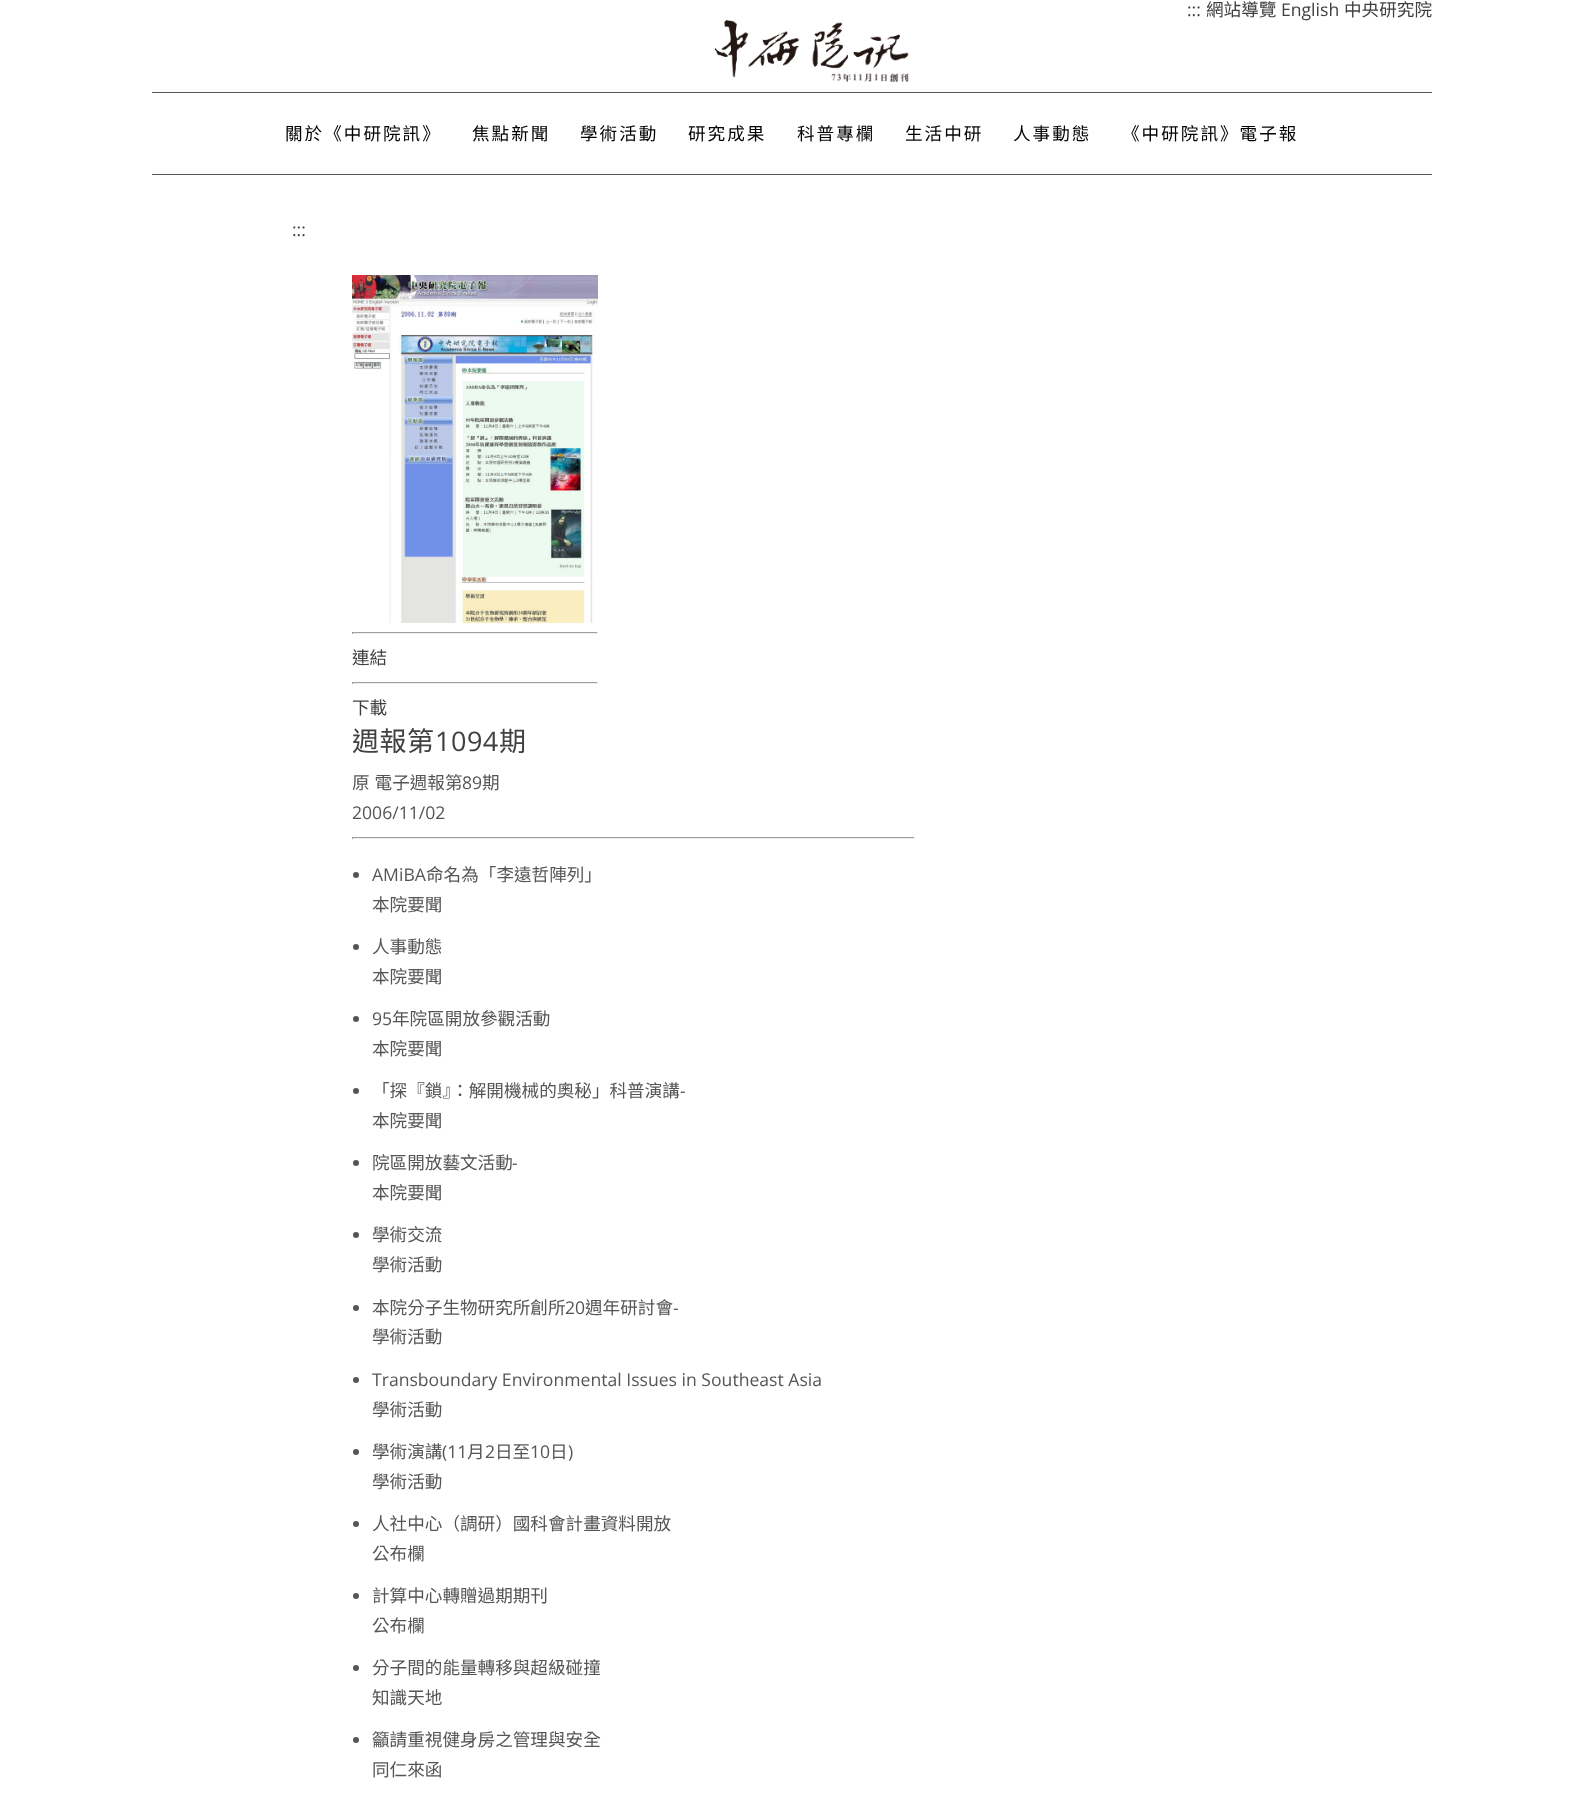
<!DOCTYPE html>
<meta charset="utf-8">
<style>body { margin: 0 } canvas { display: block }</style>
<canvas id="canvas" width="1583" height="1799"></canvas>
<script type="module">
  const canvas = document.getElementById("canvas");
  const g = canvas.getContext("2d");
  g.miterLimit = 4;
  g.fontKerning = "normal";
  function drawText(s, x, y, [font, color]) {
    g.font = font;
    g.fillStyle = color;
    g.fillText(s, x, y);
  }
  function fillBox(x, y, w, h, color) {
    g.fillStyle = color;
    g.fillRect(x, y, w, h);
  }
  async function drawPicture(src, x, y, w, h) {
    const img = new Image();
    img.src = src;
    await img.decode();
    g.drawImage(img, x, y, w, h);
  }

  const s1 = ["17.6px Open Sans", "#404040"];
  const s2 = ["17.6px Noto Sans CJK TC", "#404040"];
  const s3 = ["17.6px Noto Sans CJK TC", "#000000"];
  const s4 = ["27px Noto Sans CJK TC", "#404040"];
  const s5 = ["27px Open Sans", "#404040"];
  const s6 = ["17.6px Noto Sans CJK TC", "#555555"];
  const s7 = ["17.6px Open Sans", "#555555"];

  fillBox(0, 0, 1583, 1799, "#FFFFFF");
  drawText(":::", 1187, 16, s1);
  drawText("網站導覽", 1206, 16, s2);
  drawText("English", 1281, 16, s1);
  drawText("中央研究院", 1344, 16, s2);
  await drawPicture("pic1.png", 715, 20, 194, 62);
  fillBox(152, 92, 1280, 1, "#555555");
  fillBox(152, 174, 1280, 1, "#555555");
  g.letterSpacing = "2px";
  drawText("關於《中研院訊》", 285, 140, s3);
  drawText("焦點新聞", 472, 140, s3);
  drawText("學術活動", 580, 140, s3);
  drawText("研究成果", 688, 140, s3);
  drawText("科普專欄", 797, 140, s3);
  drawText("生活中研", 905, 140, s3);
  drawText("人事動態", 1013, 140, s3);
  drawText("《中研院訊》電子報", 1122, 140, s3);
  g.letterSpacing = "0px";
  drawText(":::", 292, 236, s1);
  await drawPicture("pic2.png", 352, 275, 246, 348);
  fillBox(352, 632, 246, 1, "#9F9F9F");
  fillBox(597, 632, 1, 2, "#EEEEEE");
  fillBox(352, 633, 246, 1, "#EEEEEE");
  fillBox(352, 632, 1, 2, "#9F9F9F");
  drawText("連結", 352, 664, s2);
  fillBox(352, 682, 246, 1, "#9F9F9F");
  fillBox(597, 682, 1, 2, "#EEEEEE");
  fillBox(352, 683, 246, 1, "#EEEEEE");
  fillBox(352, 682, 1, 2, "#9F9F9F");
  drawText("下載", 352, 714, s2);
  g.letterSpacing = "0.5px";
  drawText("週報第", 352, 751, s4);
  drawText("1094", 435, 751, s5);
  drawText("期", 499, 751, s4);
  g.letterSpacing = "0px";
  g.wordSpacing = "1px";
  drawText("原 電子週報第", 352, 789, s6);
  g.wordSpacing = "0px";
  drawText("89", 462, 789, s7);
  drawText("期", 482, 789, s6);
  drawText("2006/11/02", 352, 819, s7);
  fillBox(352, 837, 563, 1, "#9F9F9F");
  fillBox(914, 837, 1, 2, "#EEEEEE");
  fillBox(352, 838, 563, 1, "#EEEEEE");
  fillBox(352, 837, 1, 2, "#9F9F9F");
  g.fillStyle = "#555555";
  g.beginPath();
  g.arc(356, 875, 3, 0, Math.PI * 2);
  g.fill();
  drawText("AMiBA", 372, 881, s7);
  drawText("命名為「李遠哲陣列」", 426, 881, s6);
  drawText("本院要聞", 372, 911, s6);
  g.beginPath();
  g.arc(356, 947, 3, 0, Math.PI * 2);
  g.fill();
  drawText("人事動態", 372, 953, s6);
  drawText("本院要聞", 372, 983, s6);
  g.beginPath();
  g.arc(356, 1019, 3, 0, Math.PI * 2);
  g.fill();
  drawText("95", 372, 1025, s7);
  drawText("年院區開放參觀活動", 392, 1025, s6);
  drawText("本院要聞", 372, 1055, s6);
  g.beginPath();
  g.arc(356, 1091, 3, 0, Math.PI * 2);
  g.fill();
  drawText("「探『鎖』：解開機械的奧秘」科普演講", 372, 1097, s6);
  drawText("-", 680, 1097, s7);
  drawText("本院要聞", 372, 1127, s6);
  g.beginPath();
  g.arc(356, 1163, 3, 0, Math.PI * 2);
  g.fill();
  drawText("院區開放藝文活動", 372, 1169, s6);
  drawText("-", 512, 1169, s7);
  drawText("本院要聞", 372, 1199, s6);
  g.beginPath();
  g.arc(356, 1235, 3, 0, Math.PI * 2);
  g.fill();
  drawText("學術交流", 372, 1241, s6);
  drawText("學術活動", 372, 1271, s6);
  g.beginPath();
  g.arc(356, 1308, 3, 0, Math.PI * 2);
  g.fill();
  drawText("本院分子生物研究所創所", 372, 1314, s6);
  drawText("20", 565, 1314, s7);
  drawText("週年研討會", 585, 1314, s6);
  drawText("-", 673, 1314, s7);
  drawText("學術活動", 372, 1343, s6);
  g.beginPath();
  g.arc(356, 1380, 3, 0, Math.PI * 2);
  g.fill();
  drawText("Transboundary Environmental Issues in Southeast Asia", 372, 1386, s7);
  drawText("學術活動", 372, 1416, s6);
  g.beginPath();
  g.arc(356, 1452, 3, 0, Math.PI * 2);
  g.fill();
  drawText("學術演講", 372, 1458, s6);
  drawText("(11", 442, 1458, s7);
  drawText("月", 467, 1458, s6);
  drawText("2", 485, 1458, s7);
  drawText("日至", 495, 1458, s6);
  drawText("10", 530, 1458, s7);
  drawText("日", 550, 1458, s6);
  drawText(")", 568, 1458, s7);
  drawText("學術活動", 372, 1488, s6);
  g.beginPath();
  g.arc(356, 1524, 3, 0, Math.PI * 2);
  g.fill();
  drawText("人社中心（調研）國科會計畫資料開放", 372, 1530, s6);
  drawText("公布欄", 372, 1560, s6);
  g.beginPath();
  g.arc(356, 1596, 3, 0, Math.PI * 2);
  g.fill();
  drawText("計算中心轉贈過期期刊", 372, 1602, s6);
  drawText("公布欄", 372, 1632, s6);
  g.beginPath();
  g.arc(356, 1668, 3, 0, Math.PI * 2);
  g.fill();
  drawText("分子間的能量轉移與超級碰撞", 372, 1674, s6);
  drawText("知識天地", 372, 1704, s6);
  g.beginPath();
  g.arc(356, 1740, 3, 0, Math.PI * 2);
  g.fill();
  drawText("籲請重視健身房之管理與安全", 372, 1746, s6);
  drawText("同仁來函", 372, 1776, s6);
</script>
